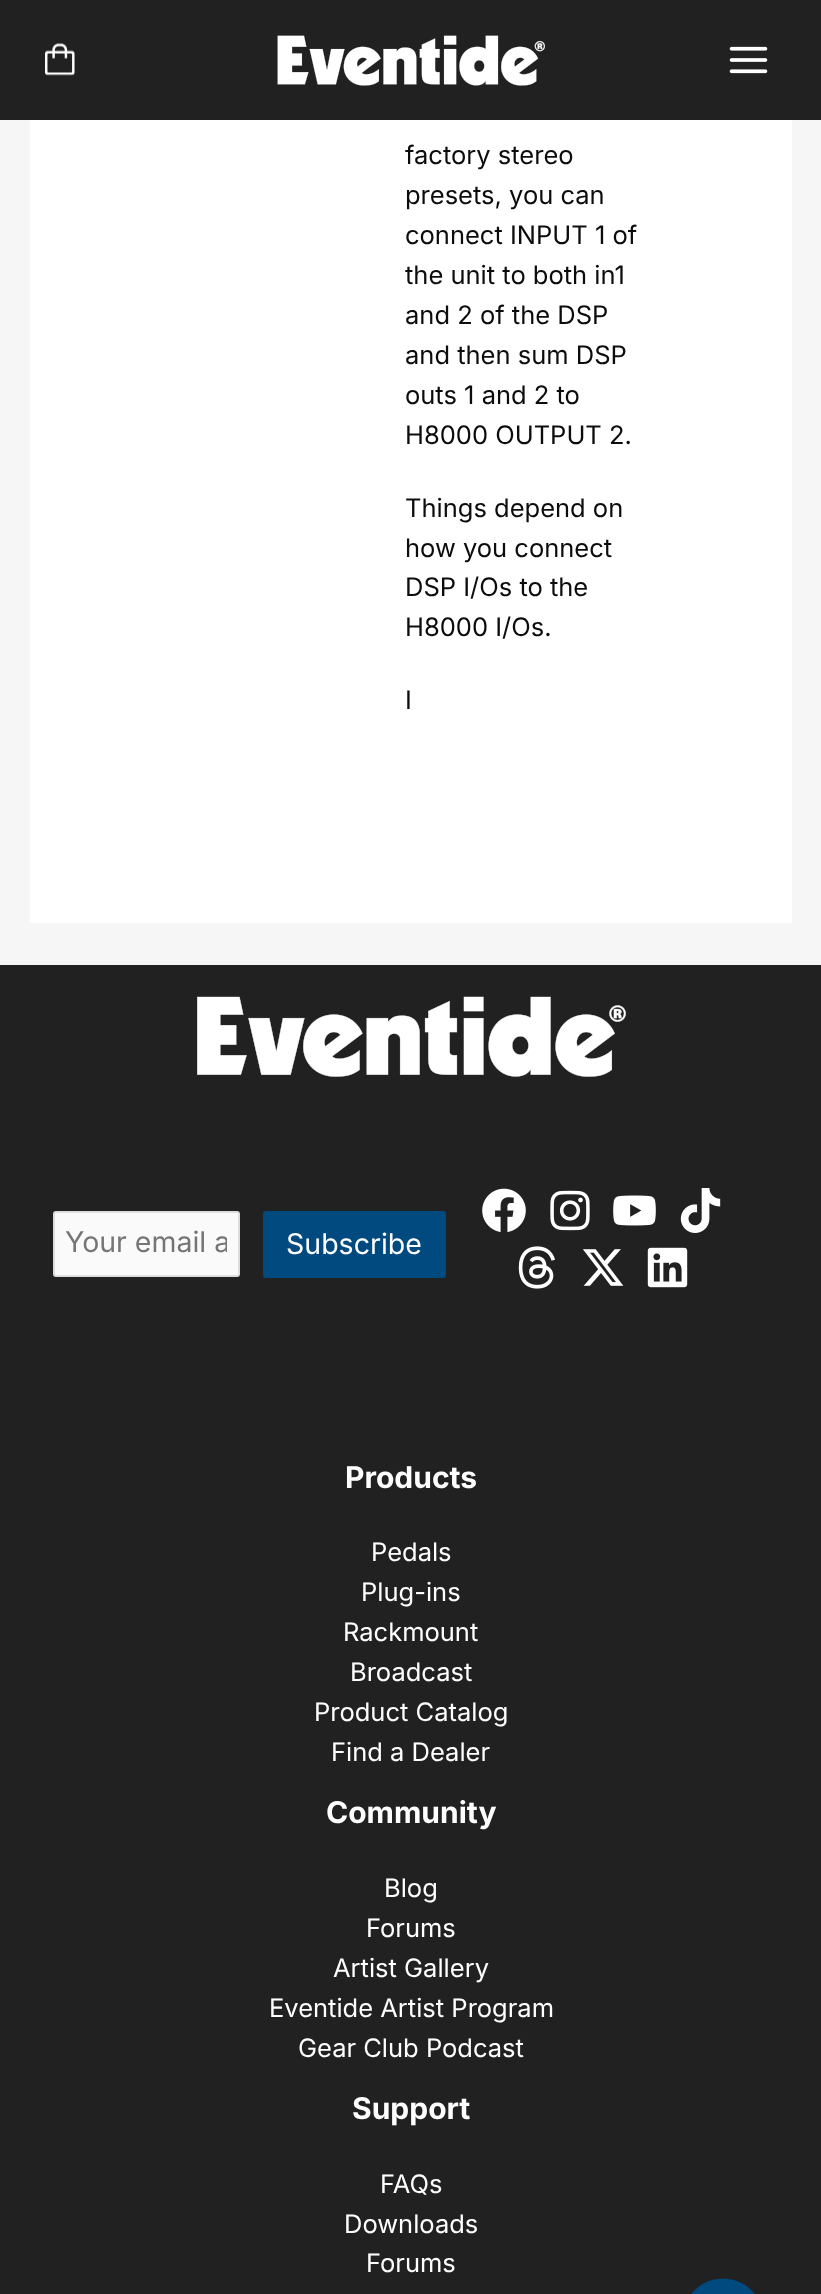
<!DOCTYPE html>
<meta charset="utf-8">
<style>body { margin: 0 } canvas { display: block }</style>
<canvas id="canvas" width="821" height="2294"></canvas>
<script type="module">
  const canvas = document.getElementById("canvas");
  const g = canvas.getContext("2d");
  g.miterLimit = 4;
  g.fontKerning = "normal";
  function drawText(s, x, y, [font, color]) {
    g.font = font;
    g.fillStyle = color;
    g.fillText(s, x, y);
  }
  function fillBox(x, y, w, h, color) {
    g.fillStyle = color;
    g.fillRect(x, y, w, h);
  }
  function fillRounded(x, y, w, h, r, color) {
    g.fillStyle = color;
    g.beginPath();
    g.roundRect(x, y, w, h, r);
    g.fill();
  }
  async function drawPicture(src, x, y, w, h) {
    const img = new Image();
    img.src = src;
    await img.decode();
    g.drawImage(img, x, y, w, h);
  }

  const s1 = ["25.5px Inter", "#0C0C0C"];
  const s2 = ["28.5px Inter", "#757575"];
  const s3 = ["28.5px Inter", "#FFFFFF"];
  const s4 = ["bold 30px Inter", "#FFFFFF"];
  const s5 = ["25.5px Inter", "#FFFFFF"];

  fillBox(0, 0, 821, 2294, "#F6F6F6");
  fillBox(0, 0, 821, 120, "#222121");
  await drawPicture("pic1.png", 45, 43, 30, 33);
  await drawPicture("pic2.png", 277, 35, 268, 51);
  await drawPicture("pic3.png", 729, 46, 39, 28);
  fillBox(30, 120, 762, 803, "#FFFFFF");
  drawText("factory stereo", 405, 164, s1);
  drawText("presets, you can", 405, 204, s1);
  drawText("connect INPUT 1 of", 405, 244, s1);
  drawText("the unit to both in1", 405, 284, s1);
  drawText("and 2 of the DSP", 405, 324, s1);
  drawText("and then sum DSP", 405, 364, s1);
  drawText("outs 1 and 2 to", 405, 404, s1);
  drawText("H8000 OUTPUT 2.", 405, 444, s1);
  drawText("Things depend on", 405, 517, s1);
  drawText("how you connect", 405, 557, s1);
  drawText("DSP I/Os to the", 405, 596, s1);
  drawText("H8000 I/Os.", 405, 636, s1);
  drawText("I", 405, 709, s1);
  fillBox(0, 965, 821, 1329, "#222121");
  await drawPicture("pic4.png", 197, 996, 429, 81);
  g.fillStyle = "#FAFAFA";
  g.beginPath();
  g.roundRect(54, 1212, 185, 64, 2);
  g.fill();
  g.strokeStyle = "#DDDDDD";
  g.lineWidth = 2;
  g.stroke();
  g.save();
  g.beginPath();
  g.rect(66, 1226, 161, 34);
  g.clip();
  drawText("Your email a", 65, 1252, s2);
  g.restore();
  fillRounded(263, 1211, 183, 67, 3, "#004A80");
  drawText("Subscribe", 286, 1254, s3);
  await drawPicture("pic5.png", 482, 1188, 44, 44);
  await drawPicture("pic6.png", 550, 1190, 40, 41);
  await drawPicture("pic7.png", 613, 1195, 43, 31);
  await drawPicture("pic8.png", 680, 1188, 41, 45);
  await drawPicture("pic9.png", 518, 1246, 37, 43);
  await drawPicture("pic10.png", 583, 1249, 41, 37);
  await drawPicture("pic11.png", 647, 1247, 41, 41);
  drawText("Products", 345, 1488, s4);
  drawText("Pedals", 371, 1561, s5);
  drawText("Plug-ins", 361, 1601, s5);
  drawText("Rackmount", 343, 1641, s5);
  drawText("Broadcast", 350, 1681, s5);
  drawText("Product Catalog", 314, 1721, s5);
  drawText("Find a Dealer", 331, 1761, s5);
  drawText("Community", 326, 1823, s4);
  drawText("Blog", 384, 1897, s5);
  drawText("Forums", 366, 1937, s5);
  drawText("Artist Gallery", 333, 1977, s5);
  drawText("Eventide Artist Program", 269, 2017, s5);
  drawText("Gear Club Podcast", 298, 2057, s5);
  drawText("Support", 352, 2119, s4);
  drawText("FAQs", 380, 2193, s5);
  drawText("Downloads", 344, 2233, s5);
  drawText("Forums", 366, 2272, s5);
  g.fillStyle = "#004A80";
  g.beginPath();
  g.ellipse(723, 2316, 39, 37.5, 0, 0, Math.PI * 2);
  g.fill();
</script>
